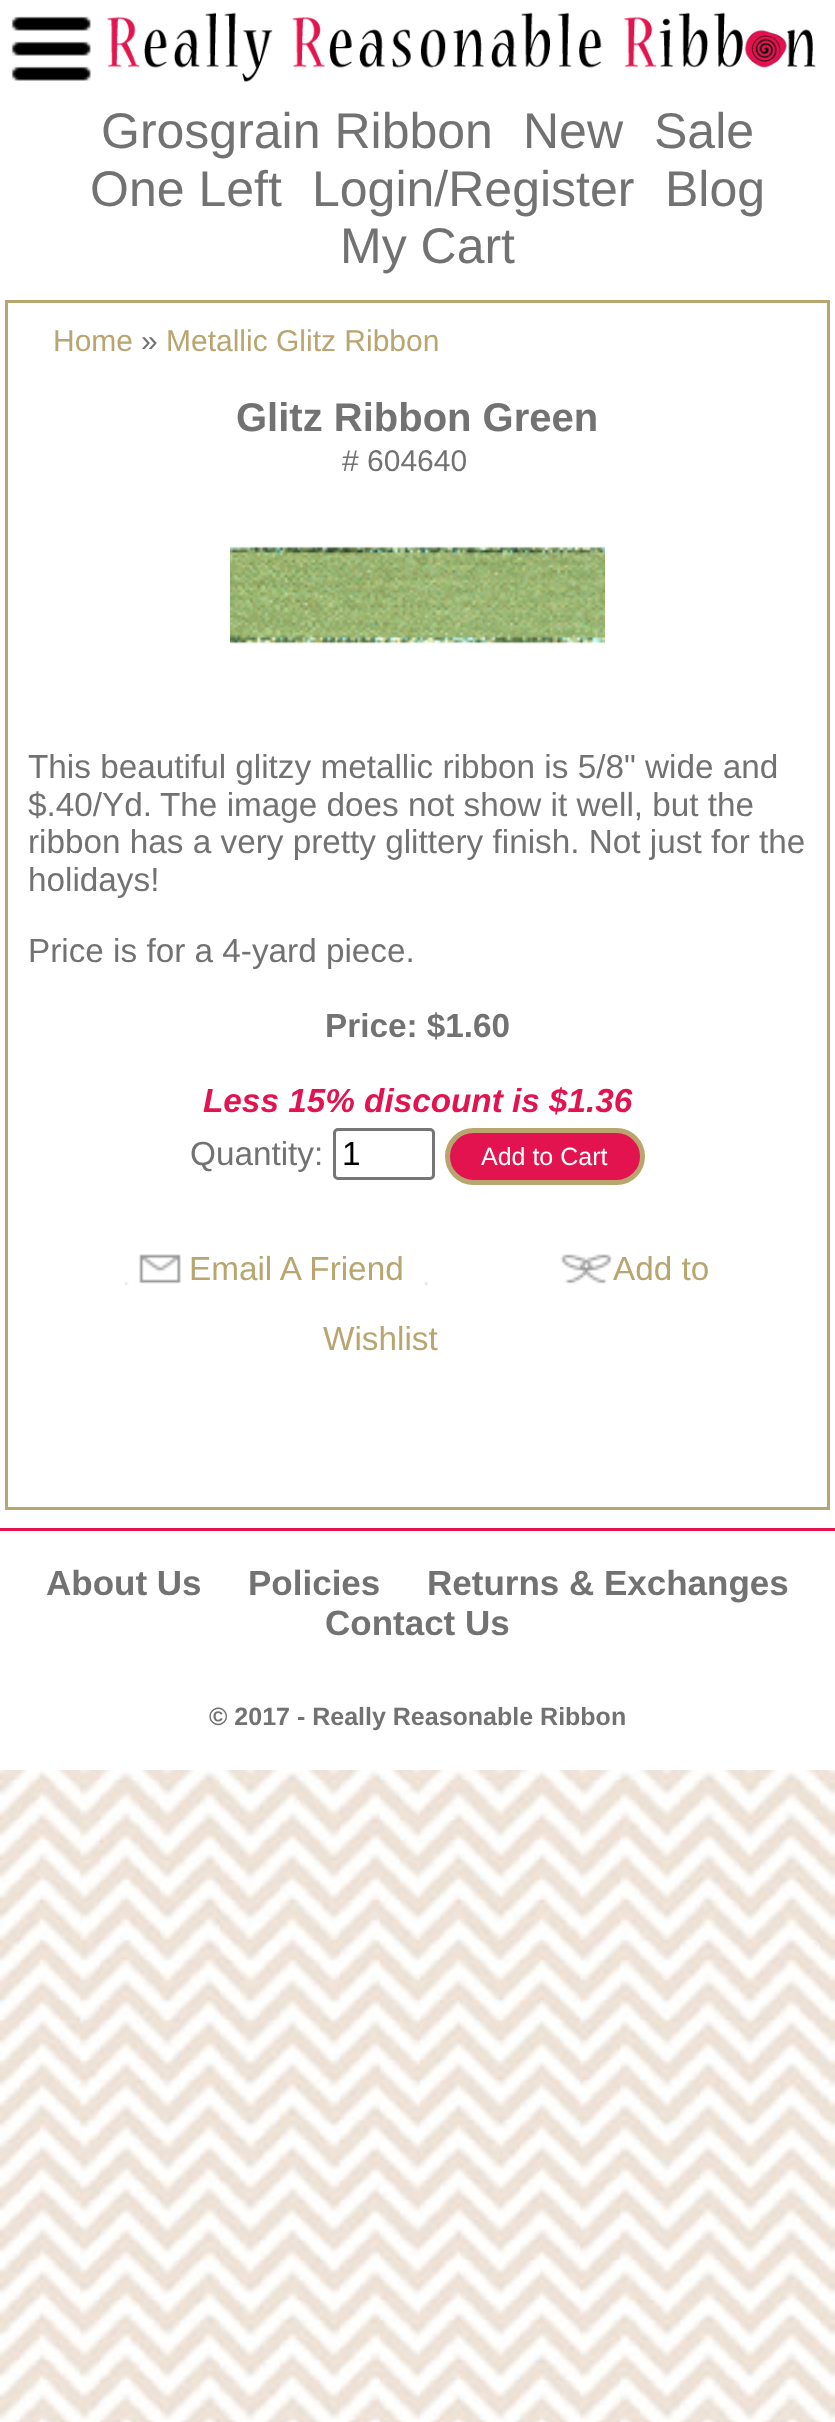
<!DOCTYPE html>
<meta charset="utf-8">
<style>body { margin: 0 } canvas { display: block }</style>
<canvas id="canvas" width="835" height="2422"></canvas>
<script type="module">
  const canvas = document.getElementById("canvas");
  const g = canvas.getContext("2d");
  g.miterLimit = 4;
  g.fontKerning = "normal";
  function drawText(s, x, y, [font, color]) {
    g.font = font;
    g.fillStyle = color;
    g.fillText(s, x, y);
  }
  function fillBox(x, y, w, h, color) {
    g.fillStyle = color;
    g.fillRect(x, y, w, h);
  }
  async function drawPicture(src, x, y, w, h) {
    const img = new Image();
    img.src = src;
    await img.decode();
    g.drawImage(img, x, y, w, h);
  }

  const s1 = ["50px Liberation Sans", "#727272"];
  const s2 = ["30px Liberation Sans", "#B8A56F"];
  const s3 = ["30px Liberation Sans", "#727272"];
  const s4 = ["bold 40px Liberation Sans", "#727272"];
  const s5 = ["33.3px Liberation Sans", "#727272"];
  const s6 = ["bold 33.3px Liberation Sans", "#727272"];
  const s7 = ["italic bold 33.3px Liberation Sans", "#E2134F"];
  const s8 = ["33.3px Liberation Sans", "#000000"];
  const s9 = ["25px Liberation Sans", "#FFFFFF"];
  const s10 = ["33.3px Liberation Sans", "#B8A56F"];
  const s11 = ["bold 35px Liberation Sans", "#727272"];
  const s12 = ["bold 25px Liberation Sans", "#727272"];

  fillBox(0, 0, 835, 2422, "#FFFFFF");
  await drawPicture("pic1.png", 0, 1770, 835, 652);
  await drawPicture("pic2.png", 107, 12, 709, 70);
  drawText("Grosgrain Ribbon", 101, 148, s1);
  drawText("New", 523, 148, s1);
  drawText("Sale", 654, 148, s1);
  drawText("One Left", 90, 206, s1);
  drawText("Login/Register", 312, 206, s1);
  drawText("Blog", 665, 206, s1);
  drawText("My Cart", 340, 263, s1);
  await drawPicture("pic3.png", 11, 16, 80, 65);
  g.strokeStyle = "#B8A56F";
  g.lineWidth = 3;
  g.strokeRect(6.5, 301.5, 822, 1207);
  drawText("Home", 53, 351, s2);
  drawText("»", 141, 351, s3);
  drawText("Metallic Glitz Ribbon", 166, 351, s2);
  drawText("Glitz Ribbon Green", 236, 431, s4);
  drawText("# 604640", 342, 471, s3);
  await drawPicture("pic4.png", 230, 546, 375, 98);
  drawText("This beautiful glitzy metallic ribbon is 5/8\" wide and", 28, 778, s5);
  drawText("$.40/Yd.", 28, 816, s5);
  drawText("The image does not show it well, but the", 160, 816, s5);
  drawText("ribbon has a very pretty glittery finish. Not just for the", 28, 853, s5);
  drawText("holidays!", 28, 891, s5);
  drawText("Price is for a 4-yard piece.", 28, 962, s5);
  drawText("Price: $1.60", 325, 1037, s6);
  drawText("Less 15% discount is $1.36", 203, 1112, s7);
  drawText("Quantity:", 190, 1165, s5);
  g.beginPath();
  g.roundRect(334.5, 1129.5, 99, 49, 3.5);
  g.strokeStyle = "#767676";
  g.stroke();
  drawText("1", 342, 1165, s8);
  g.fillStyle = "#E2134F";
  g.beginPath();
  g.roundRect(447.5, 1130.5, 195, 52, 26);
  g.fill();
  g.strokeStyle = "#B8A56F";
  g.lineWidth = 5;
  g.stroke();
  drawText("Add to Cart", 481, 1165, s9);
  await drawPicture("pic5.png", 125, 1254, 303, 32);
  await drawPicture("pic6.png", 560, 1254, 53, 30);
  drawText("Email A Friend", 189, 1280, s10);
  drawText("Add to", 613, 1280, s10);
  drawText("Wishlist", 323, 1350, s10);
  fillBox(0, 1528, 835, 3, "#E2134F");
  drawText("About Us", 46, 1595, s11);
  drawText("Policies", 248, 1595, s11);
  drawText("Returns & Exchanges", 427, 1595, s11);
  drawText("Contact Us", 325, 1635, s11);
  drawText("© 2017 - Really Reasonable Ribbon", 209, 1725, s12);
</script>
